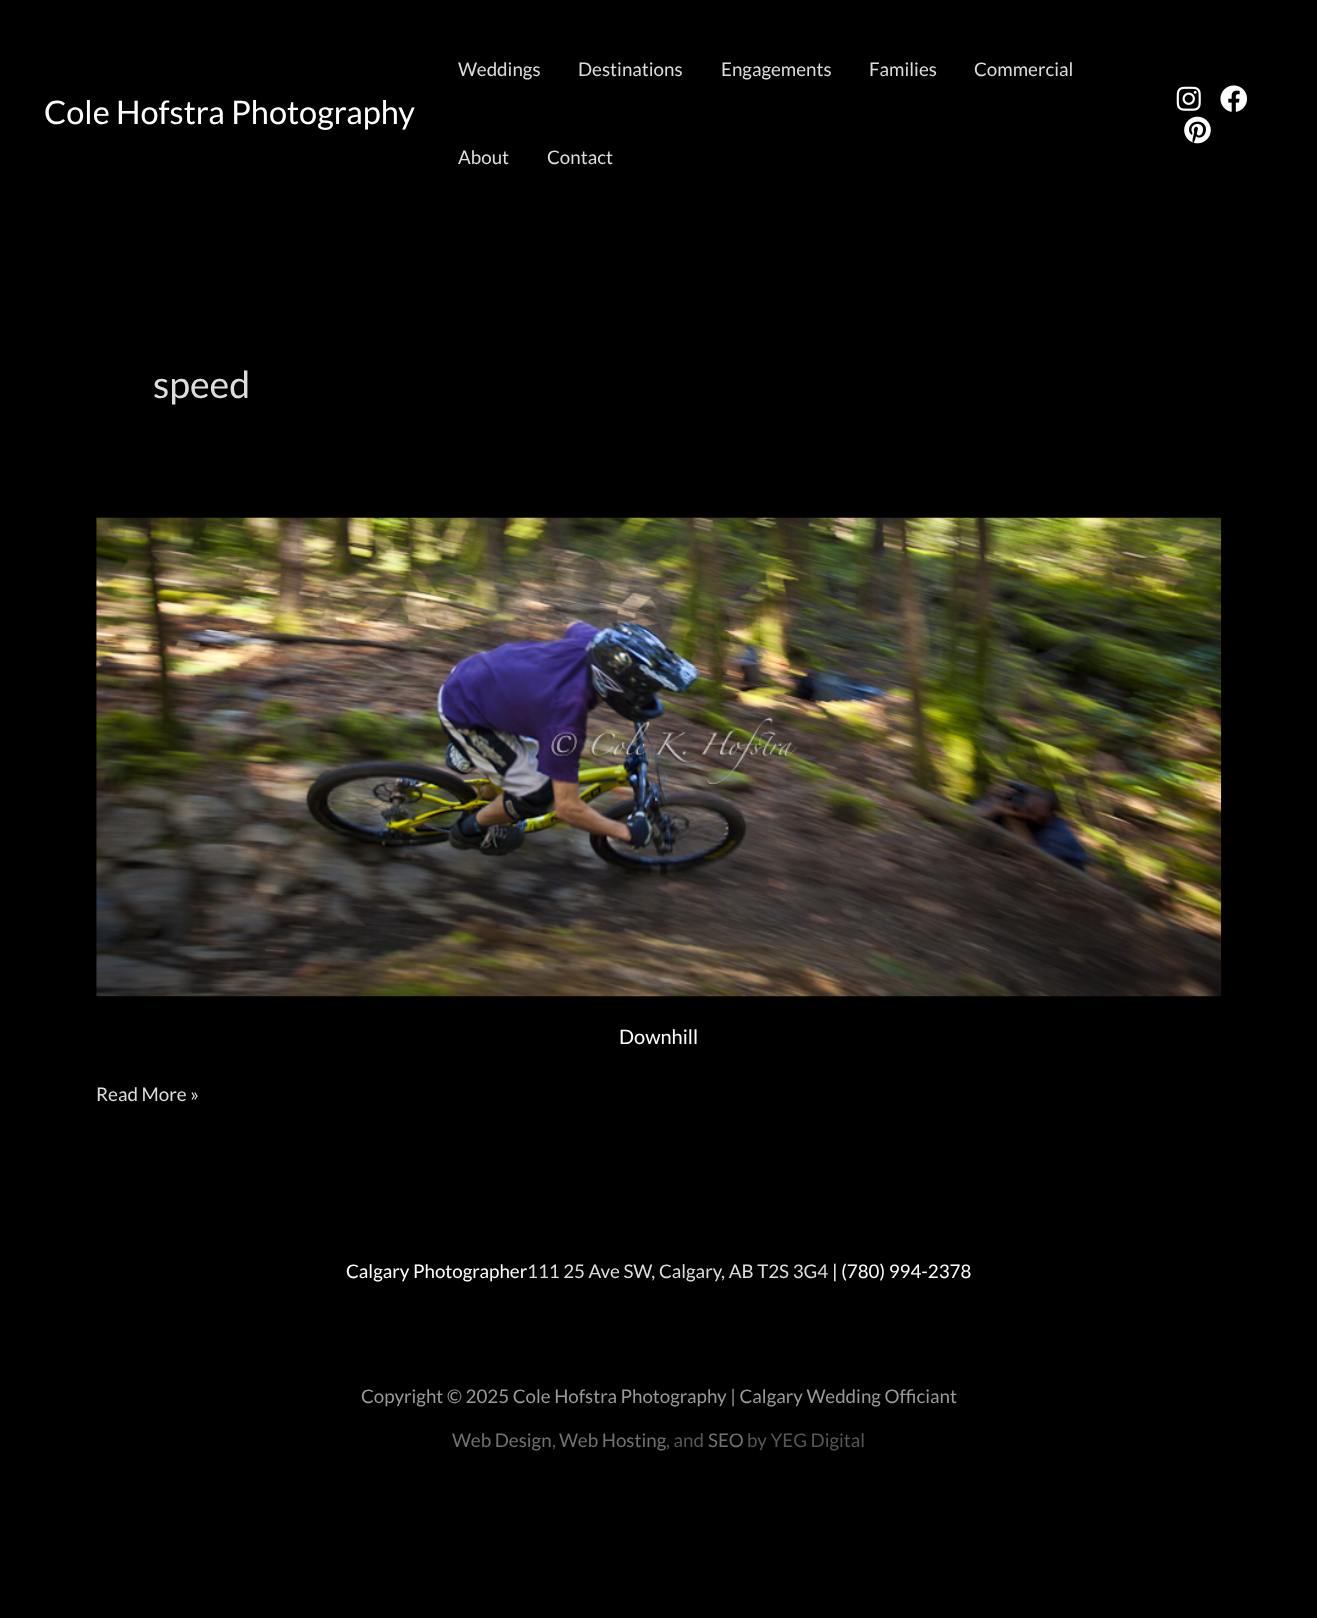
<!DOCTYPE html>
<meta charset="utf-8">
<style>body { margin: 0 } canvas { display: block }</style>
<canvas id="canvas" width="1317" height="1618"></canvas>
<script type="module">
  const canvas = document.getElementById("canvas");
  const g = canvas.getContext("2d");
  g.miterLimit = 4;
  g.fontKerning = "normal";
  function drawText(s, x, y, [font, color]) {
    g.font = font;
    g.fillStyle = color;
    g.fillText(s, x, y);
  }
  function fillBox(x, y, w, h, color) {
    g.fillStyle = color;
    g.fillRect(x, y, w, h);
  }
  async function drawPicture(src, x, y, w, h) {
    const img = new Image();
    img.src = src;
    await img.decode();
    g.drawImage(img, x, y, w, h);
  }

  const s1 = ["32.5px Lato", "#FFFFFF"];
  const s2 = ["18.75px Lato", "#DDDDDD"];
  const s3 = ["37.5px Lato", "#DDDDDD"];
  const s4 = ["20px Lato", "#FFFFFF"];
  const s5 = ["18.75px Lato", "#FFFFFF"];
  const s6 = ["18.75px Lato", "#999999"];
  const s7 = ["18.75px Lato", "#717171"];
  const s8 = ["18.75px Lato", "#565656"];

  fillBox(0, 0, 1317, 1618, "#000000");
  drawText("Cole Hofstra Photography", 44, 124, s1);
  drawText("Weddings", 458, 76, s2);
  drawText("Destinations", 578, 76, s2);
  drawText("Engagements", 721, 76, s2);
  drawText("Families", 869, 76, s2);
  drawText("Commercial", 974, 76, s2);
  drawText("About", 458, 164, s2);
  drawText("Contact", 547, 164, s2);
  await drawPicture("pic1.png", 1176, 86, 25, 25);
  await drawPicture("pic2.png", 1220, 85, 28, 27);
  await drawPicture("pic3.png", 1184, 116, 27, 28);
  drawText("speed", 153, 398, s3);
  await drawPicture("pic4.png", 96, 517, 1126, 480);
  drawText("Downhill", 619, 1044, s4);
  drawText("Read More »", 96, 1101, s2);
  drawText("Calgary Photographer", 346, 1278, s5);
  drawText("111 25 Ave SW, Calgary, AB T2S 3G4", 527, 1278, s2);
  drawText("| (780) 994-2378", 832, 1278, s5);
  drawText("Copyright © 2025 Cole Hofstra Photography | Calgary Wedding Officiant", 361, 1403, s6);
  drawText("Web Design", 452, 1447, s7);
  drawText(",", 552, 1447, s8);
  drawText("Web Hosting", 559, 1447, s7);
  drawText(", and", 666, 1447, s8);
  drawText("SEO", 708, 1447, s7);
  drawText("by YEG Digital", 747, 1447, s8);
</script>
